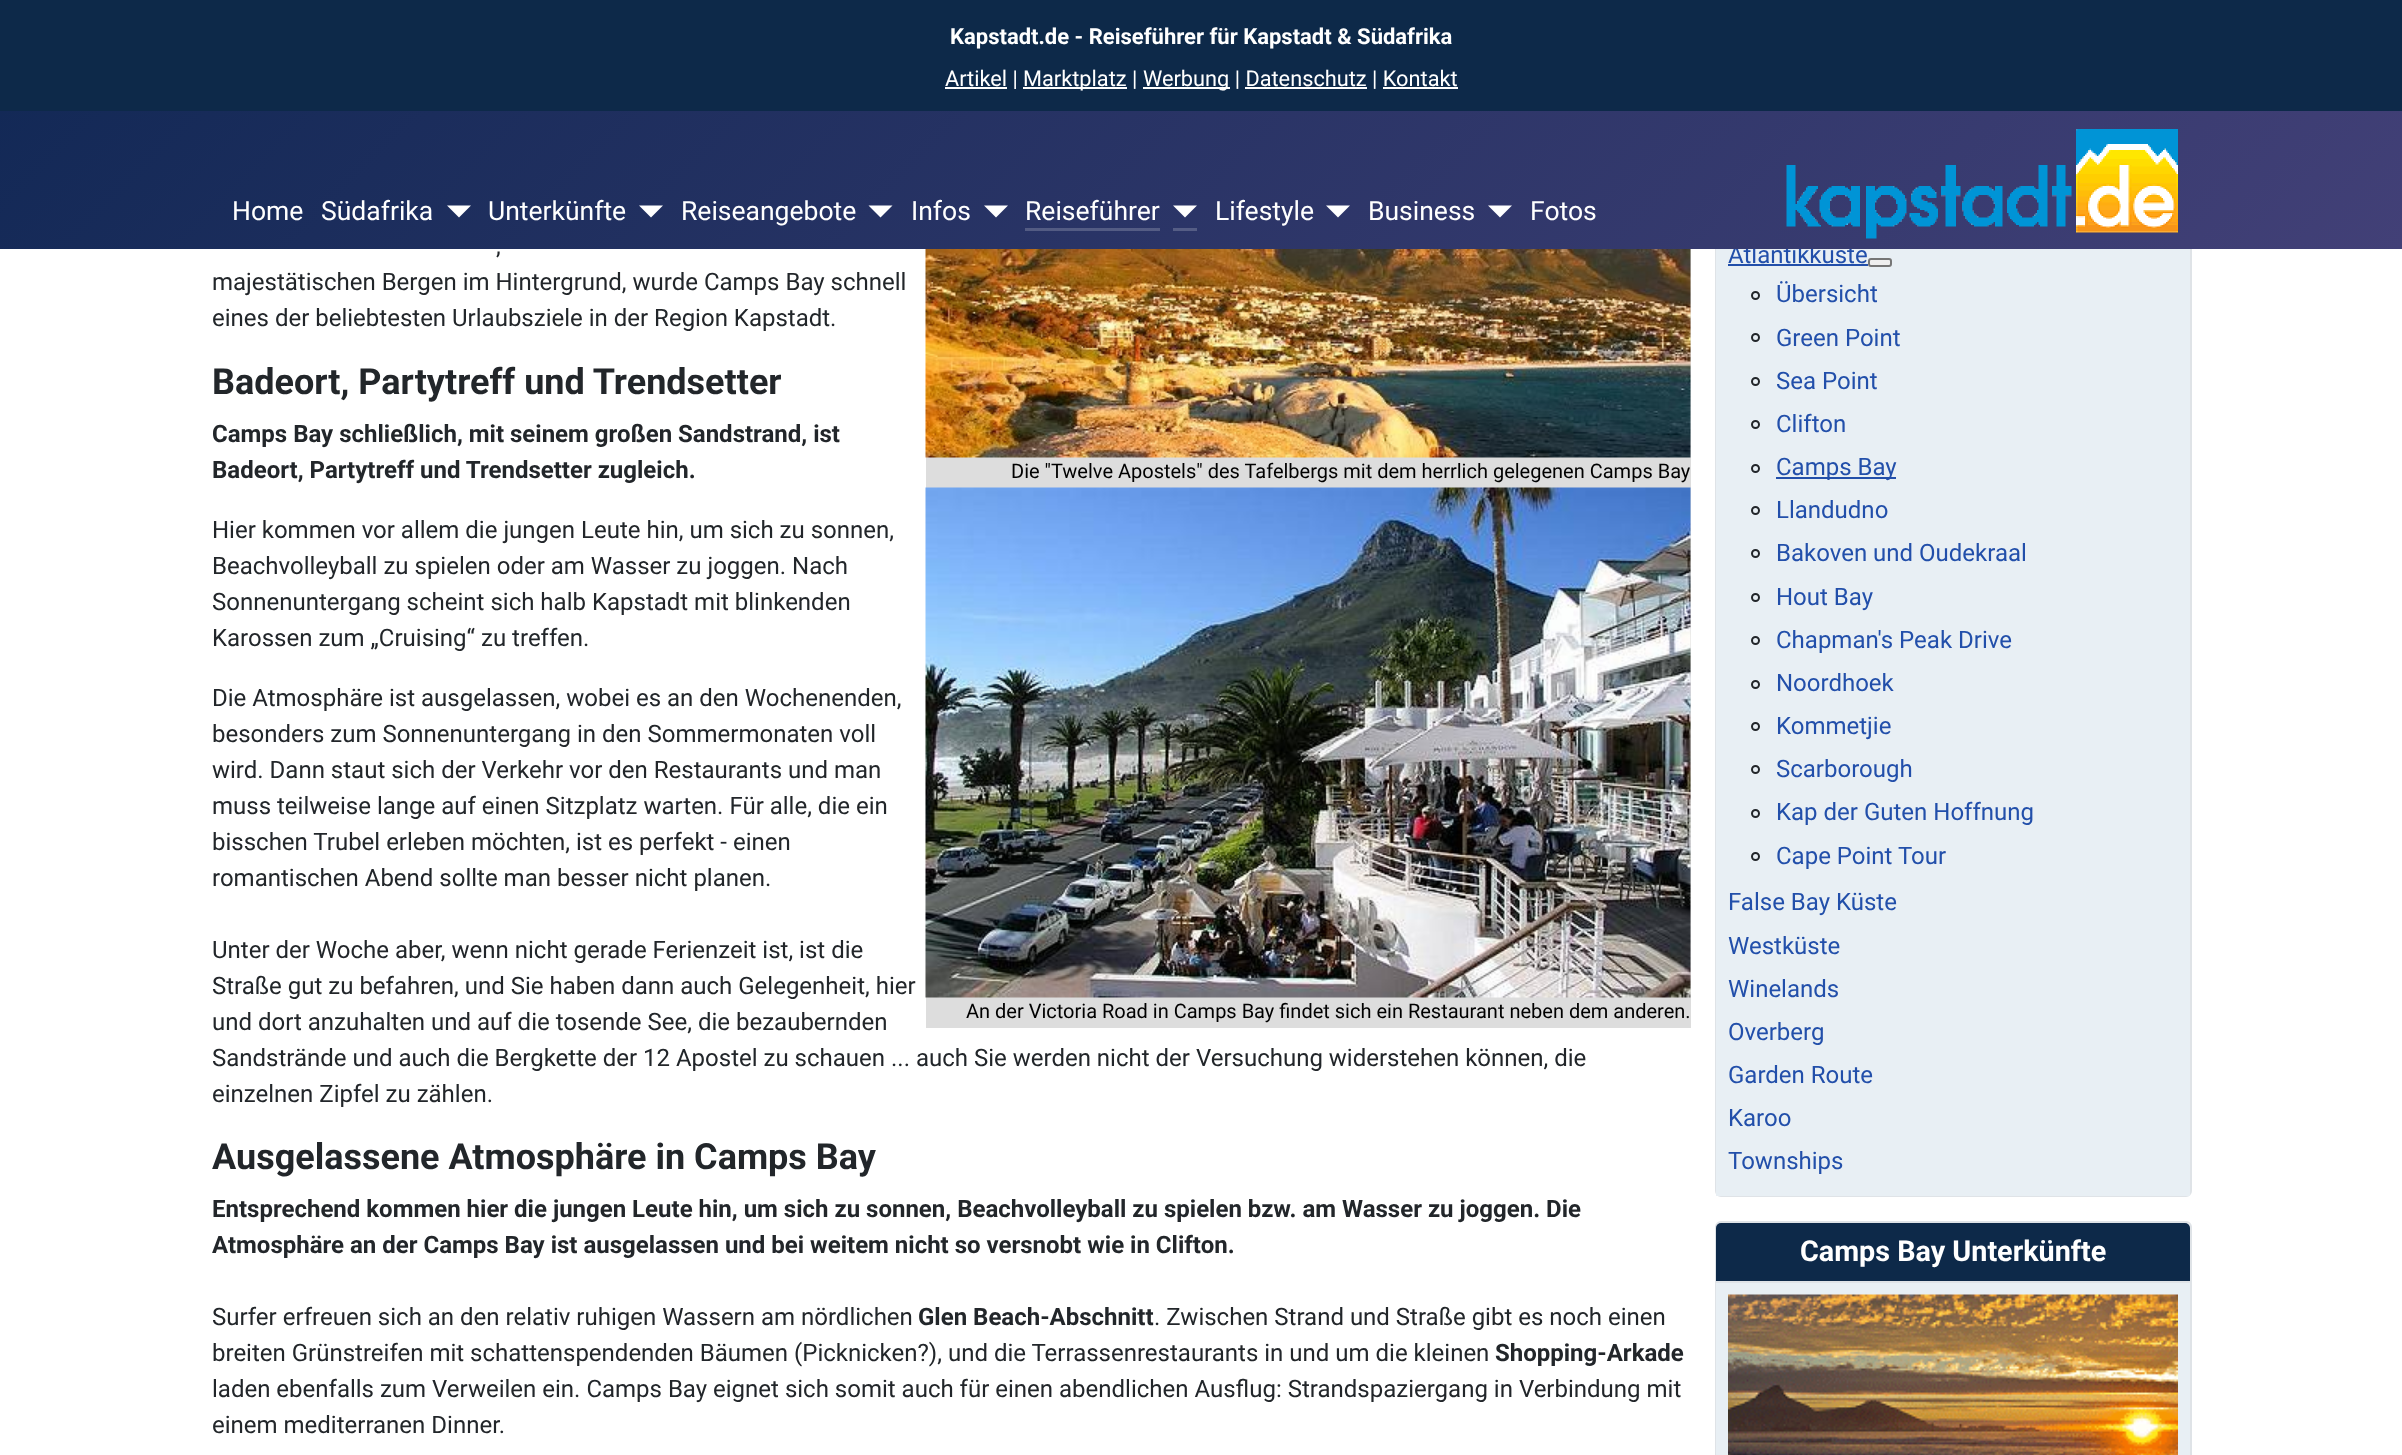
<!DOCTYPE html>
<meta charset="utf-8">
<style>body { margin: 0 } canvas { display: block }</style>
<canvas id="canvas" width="2402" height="1455"></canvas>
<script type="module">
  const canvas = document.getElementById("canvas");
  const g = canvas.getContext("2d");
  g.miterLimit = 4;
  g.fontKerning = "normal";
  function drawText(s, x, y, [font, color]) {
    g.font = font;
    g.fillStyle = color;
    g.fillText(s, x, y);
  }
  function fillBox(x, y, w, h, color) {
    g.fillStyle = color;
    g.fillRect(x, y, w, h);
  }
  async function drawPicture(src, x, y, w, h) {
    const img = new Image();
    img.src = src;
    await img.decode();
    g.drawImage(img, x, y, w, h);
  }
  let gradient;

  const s1 = ["24px Roboto", "#224FAA"];
  const s2 = ["bold 22px Roboto", "#FFFFFF"];
  const s3 = ["21.75px Roboto", "#FFFFFF"];
  const s4 = ["26.5px Roboto", "#FFFFFF"];
  const s5 = ["24px Roboto", "#22262A"];
  const s6 = ["bold 36px Roboto", "#22262A"];
  const s7 = ["bold 24px Roboto", "#22262A"];
  const s8 = ["20px Roboto", "#000000"];
  const s9 = ["bold 28.75px Roboto", "#FFFFFF"];

  fillBox(0, 0, 2402, 1455, "#FFFFFF");
  g.beginPath();
  g.roundRect(1716, 31, 475, 1165, 5);
  g.strokeStyle = "#DFE3E7";
  g.lineWidth = 2;
  g.stroke();
  fillBox(1716, 249, 474, 947, "#E8EFF4");
  drawText("Atlantikküste", 1728, 263, s1);
  gradient = g.createLinearGradient(538, -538, 1865, 788);
  gradient.addColorStop(0, "#112855");
  gradient.addColorStop(1, "#424077");
  g.fillStyle = gradient;
  g.fillRect(0, 111, 2402, 138);
  fillBox(0, 0, 2402, 111, "#0D2949");
  drawText("Kapstadt.de - Reiseführer für Kapstadt & Südafrika", 950, 44, s2);
  fillBox(945, 87, 62, 2, "#FFFFFF");
  drawText("Artikel |", 945, 86, s3);
  fillBox(1023, 87, 104, 2, "#FFFFFF");
  drawText("Marktplatz |", 1023, 86, s3);
  fillBox(1143, 87, 87, 2, "#FFFFFF");
  drawText("Werbung | Datenschutz | Kontakt", 1143, 86, s3);
  fillBox(1245, 87, 122, 2, "#FFFFFF");
  fillBox(1383, 87, 75, 2, "#FFFFFF");
  drawText("Home", 232, 220, s4);
  drawText("Südafrika", 321, 220, s4);
  g.beginPath();
  g.moveTo(447, 205.5);
  g.lineTo(471, 205.5);
  g.lineTo(459, 217.5);
  g.closePath();
  g.fill();
  drawText("Unterkünfte", 488, 220, s4);
  g.beginPath();
  g.moveTo(639, 205.5);
  g.lineTo(663, 205.5);
  g.lineTo(651, 217.5);
  g.closePath();
  g.fill();
  drawText("Reiseangebote", 681, 220, s4);
  g.beginPath();
  g.moveTo(868.5, 205.5);
  g.lineTo(892.5, 205.5);
  g.lineTo(880.5, 217.5);
  g.closePath();
  g.fill();
  drawText("Infos", 911, 220, s4);
  g.beginPath();
  g.moveTo(984, 205.5);
  g.lineTo(1008, 205.5);
  g.lineTo(996, 217.5);
  g.closePath();
  g.fill();
  drawText("Reiseführer", 1025, 220, s4);
  fillBox(1025, 228, 135, 3, "rgba(255, 255, 255, 0.2)");
  g.fillStyle = "#FFFFFF";
  g.beginPath();
  g.moveTo(1173, 205.5);
  g.lineTo(1197, 205.5);
  g.lineTo(1185, 217.5);
  g.closePath();
  g.fill();
  fillBox(1173, 228, 24, 3, "#555D85");
  drawText("Lifestyle", 1215, 220, s4);
  g.beginPath();
  g.moveTo(1326, 205.5);
  g.lineTo(1350, 205.5);
  g.lineTo(1338, 217.5);
  g.closePath();
  g.fill();
  drawText("Business", 1368, 220, s4);
  g.beginPath();
  g.moveTo(1488, 205.5);
  g.lineTo(1512, 205.5);
  g.lineTo(1500, 217.5);
  g.closePath();
  g.fill();
  drawText("Fotos", 1530, 220, s4);
  await drawPicture("pic1.png", 1786, 129, 392, 110);
  drawText(",", 496, 254, s5);
  drawText("majestätischen Bergen im Hintergrund, wurde Camps Bay schnell", 212, 290, s5);
  drawText("eines der beliebtesten Urlaubsziele in der Region Kapstadt.", 212, 326, s5);
  drawText("Badeort, Partytreff und Trendsetter", 212, 394, s6);
  drawText("Camps Bay schließlich, mit seinem großen Sandstrand, ist", 212, 442, s7);
  drawText("Badeort, Partytreff und Trendsetter zugleich.", 212, 478, s7);
  fillBox(926, 249, 765, 779, "#DDDDDD");
  await drawPicture("pic2.png", 925, 487, 766, 511);
  drawText("An der Victoria Road in Camps Bay findet sich ein Restaurant neben dem anderen.", 966, 1018, s8);
  await drawPicture("pic3.png", 925, 249, 766, 209);
  drawText("Die \"Twelve Apostels\" des Tafelbergs mit dem herrlich gelegenen Camps Bay", 1011, 478, s8);
  drawText("Hier kommen vor allem die jungen Leute hin, um sich zu sonnen,", 212, 538, s5);
  drawText("Beachvolleyball zu spielen oder am Wasser zu joggen. Nach", 212, 574, s5);
  drawText("Sonnenuntergang scheint sich halb Kapstadt mit blinkenden", 212, 610, s5);
  drawText("Karossen zum „Cruising“ zu treffen.", 212, 646, s5);
  drawText("Die Atmosphäre ist ausgelassen, wobei es an den Wochenenden,", 212, 706, s5);
  drawText("besonders zum Sonnenuntergang in den Sommermonaten voll", 212, 742, s5);
  drawText("wird. Dann staut sich der Verkehr vor den Restaurants und man", 212, 778, s5);
  drawText("muss teilweise lange auf einen Sitzplatz warten. Für alle, die ein", 212, 814, s5);
  drawText("bisschen Trubel erleben möchten, ist es perfekt - einen", 212, 850, s5);
  drawText("romantischen Abend sollte man besser nicht planen.", 212, 886, s5);
  drawText("Unter der Woche aber, wenn nicht gerade Ferienzeit ist, ist die", 212, 958, s5);
  drawText("Straße gut zu befahren, und Sie haben dann auch Gelegenheit, hier", 212, 994, s5);
  drawText("und dort anzuhalten und auf die tosende See, die bezaubernden", 212, 1030, s5);
  drawText("Sandstrände und auch die Bergkette der 12 Apostel zu schauen ... auch Sie werden nicht der Versuchung widerstehen können, die", 212, 1066, s5);
  drawText("einzelnen Zipfel zu zählen.", 212, 1102, s5);
  drawText("Ausgelassene Atmosphäre in Camps Bay", 212, 1169, s6);
  drawText("Entsprechend kommen hier die jungen Leute hin, um sich zu sonnen, Beachvolleyball zu spielen bzw. am Wasser zu joggen. Die", 212, 1217, s7);
  drawText("Atmosphäre an der Camps Bay ist ausgelassen und bei weitem nicht so versnobt wie in Clifton.", 212, 1253, s7);
  drawText("Surfer erfreuen sich an den relativ ruhigen Wassern am nördlichen", 212, 1325, s5);
  drawText("Glen Beach-Abschnitt", 918, 1325, s7);
  drawText(". Zwischen Strand und Straße gibt es noch einen", 1154, 1325, s5);
  drawText("breiten Grünstreifen mit schattenspendenden Bäumen (Picknicken?), und die Terrassenrestaurants in und um die kleinen", 212, 1361, s5);
  drawText("Shopping-Arkade", 1495, 1361, s7);
  drawText("laden ebenfalls zum Verweilen ein. Camps Bay eignet sich somit auch für einen abendlichen Ausflug: Strandspaziergang in Verbindung mit", 212, 1397, s5);
  drawText("einem mediterranen Dinner.", 212, 1433, s5);
  fillBox(1728, 264, 140, 2, "#224FAA");
  g.fillStyle = "#EFEFEF";
  g.beginPath();
  g.roundRect(1869, 259, 22, 7, 2);
  g.fill();
  g.strokeStyle = "#767676";
  g.stroke();
  g.beginPath();
  g.arc(1755.5, 295.5, 3.5, 0, Math.PI * 2);
  g.strokeStyle = "#22262A";
  g.stroke();
  drawText("Übersicht", 1776, 302, s1);
  g.beginPath();
  g.arc(1755.5, 337.5, 3.5, 0, Math.PI * 2);
  g.stroke();
  drawText("Green Point", 1776, 346, s1);
  g.beginPath();
  g.arc(1755.5, 381.5, 3.5, 0, Math.PI * 2);
  g.stroke();
  drawText("Sea Point", 1776, 389, s1);
  g.beginPath();
  g.arc(1755.5, 424.5, 3.5, 0, Math.PI * 2);
  g.stroke();
  drawText("Clifton", 1776, 432, s1);
  g.beginPath();
  g.arc(1755.5, 468.5, 3.5, 0, Math.PI * 2);
  g.stroke();
  fillBox(1776, 477, 120, 2, "#224FAA");
  drawText("Camps Bay", 1776, 475, s1);
  g.beginPath();
  g.arc(1755.5, 510.5, 3.5, 0, Math.PI * 2);
  g.stroke();
  drawText("Llandudno", 1776, 518, s1);
  g.beginPath();
  g.arc(1755.5, 553.5, 3.5, 0, Math.PI * 2);
  g.stroke();
  drawText("Bakoven und Oudekraal", 1776, 561, s1);
  g.beginPath();
  g.arc(1755.5, 597.5, 3.5, 0, Math.PI * 2);
  g.stroke();
  drawText("Hout Bay", 1776, 605, s1);
  g.beginPath();
  g.arc(1755.5, 640.5, 3.5, 0, Math.PI * 2);
  g.stroke();
  drawText("Chapman's Peak Drive", 1776, 648, s1);
  g.beginPath();
  g.arc(1755.5, 684.5, 3.5, 0, Math.PI * 2);
  g.stroke();
  drawText("Noordhoek", 1776, 691, s1);
  g.beginPath();
  g.arc(1755.5, 726.5, 3.5, 0, Math.PI * 2);
  g.stroke();
  drawText("Kommetjie", 1776, 734, s1);
  g.beginPath();
  g.arc(1755.5, 769.5, 3.5, 0, Math.PI * 2);
  g.stroke();
  drawText("Scarborough", 1776, 777, s1);
  g.beginPath();
  g.arc(1755.5, 813.5, 3.5, 0, Math.PI * 2);
  g.stroke();
  drawText("Kap der Guten Hoffnung", 1776, 820, s1);
  g.beginPath();
  g.arc(1755.5, 856.5, 3.5, 0, Math.PI * 2);
  g.stroke();
  drawText("Cape Point Tour", 1776, 864, s1);
  drawText("False Bay Küste", 1728, 910, s1);
  drawText("Westküste", 1728, 954, s1);
  drawText("Winelands", 1728, 997, s1);
  drawText("Overberg", 1728, 1040, s1);
  drawText("Garden Route", 1728, 1083, s1);
  drawText("Karoo", 1728, 1126, s1);
  drawText("Townships", 1728, 1169, s1);
  g.beginPath();
  g.roundRect(1716, 1222, 475, 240, 5);
  g.strokeStyle = "#DFE3E7";
  g.stroke();
  g.fillStyle = "#0D2949";
  g.beginPath();
  g.roundRect(1716, 1223, 474, 60, [5, 5, 0, 0]);
  g.fill();
  fillBox(1716, 1281, 474, 2, "#DFE3E7");
  drawText("Camps Bay Unterkünfte", 1800, 1261, s9);
  fillBox(1716, 1283, 474, 172, "#E8EFF4");
  await drawPicture("pic4.png", 1728, 1294, 450, 161);
</script>
